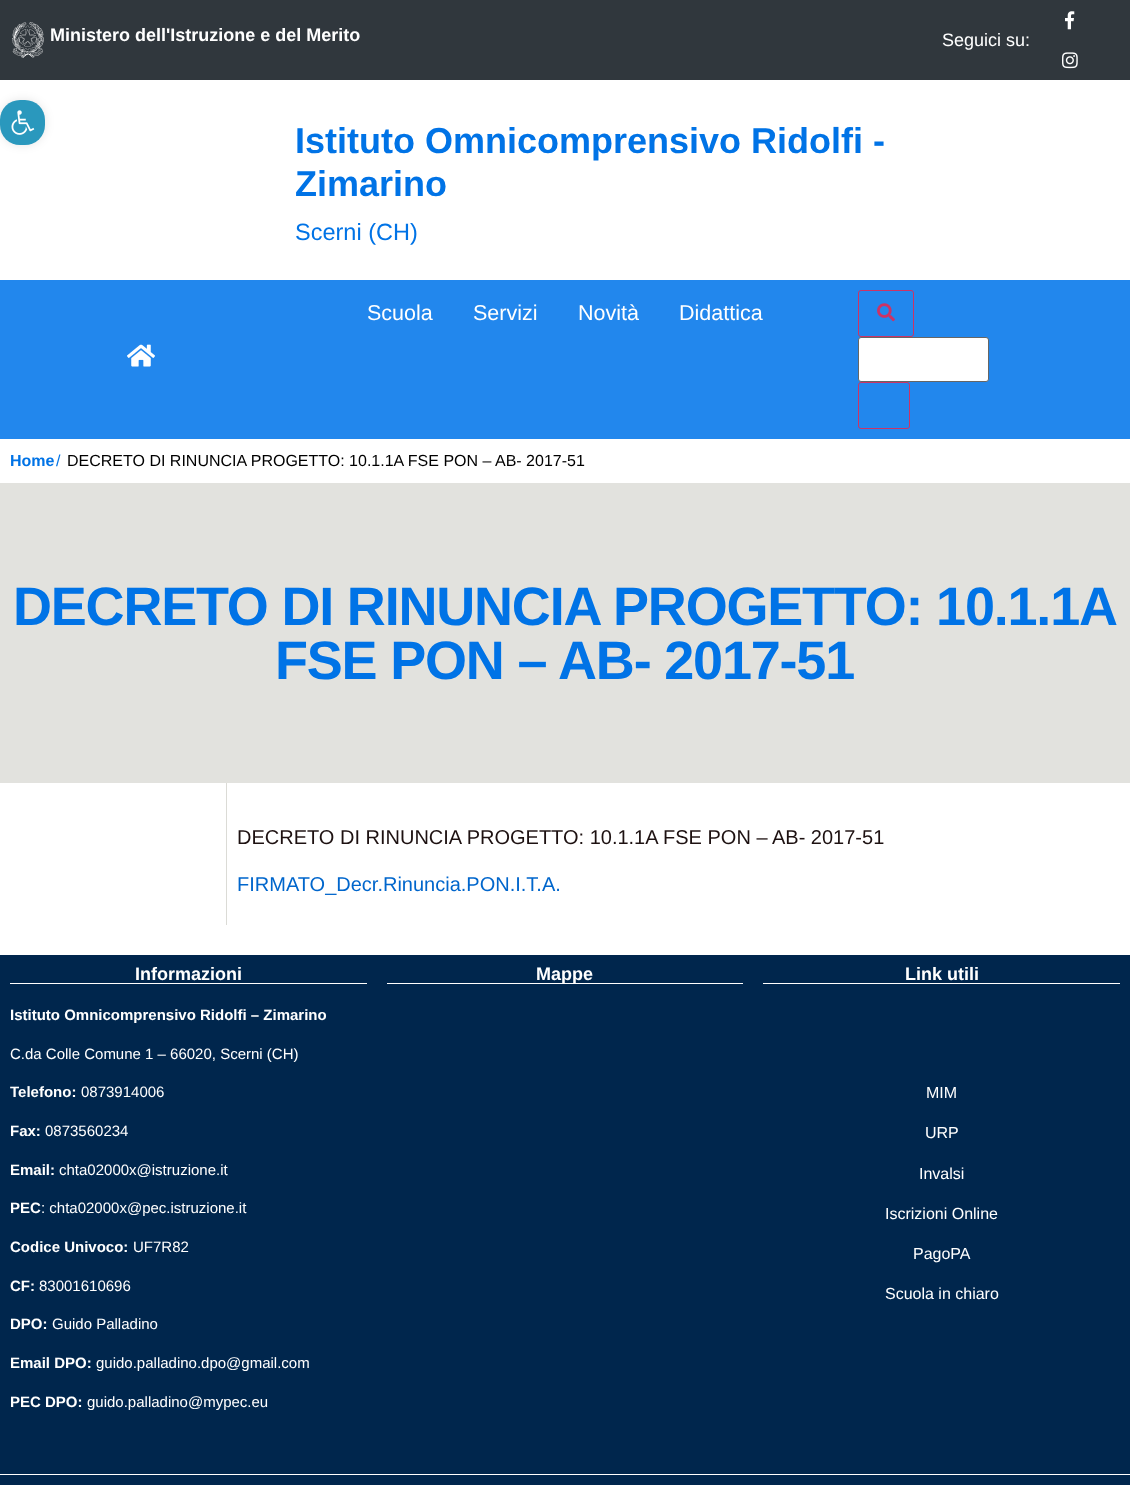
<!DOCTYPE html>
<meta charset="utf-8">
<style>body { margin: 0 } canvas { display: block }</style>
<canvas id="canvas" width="1130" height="1485"></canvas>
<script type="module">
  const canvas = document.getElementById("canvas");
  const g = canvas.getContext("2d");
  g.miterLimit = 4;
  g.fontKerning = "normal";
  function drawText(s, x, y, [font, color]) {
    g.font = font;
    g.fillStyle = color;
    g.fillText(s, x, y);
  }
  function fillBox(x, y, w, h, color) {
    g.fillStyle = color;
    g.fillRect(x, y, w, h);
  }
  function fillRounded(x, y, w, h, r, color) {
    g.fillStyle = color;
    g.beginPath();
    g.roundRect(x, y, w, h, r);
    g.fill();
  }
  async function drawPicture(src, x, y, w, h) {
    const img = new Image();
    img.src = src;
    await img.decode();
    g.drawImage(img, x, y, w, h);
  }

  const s1 = ["bold 18px Liberation Sans", "#FFFFFF"];
  const s2 = ["18px Liberation Sans", "#FFFFFF"];
  const s3 = ["bold 36px Liberation Sans", "#0073E6"];
  const s4 = ["23.5px Liberation Sans", "#0073E6"];
  const s5 = ["21.5px Liberation Sans", "#FFFFFF"];
  const s6 = ["bold 16px Liberation Sans", "#0073E6"];
  const s7 = ["16px Liberation Sans", "#0073E6"];
  const s8 = ["16px Liberation Sans", "#000000"];
  const s9 = ["bold 54px Liberation Sans", "#0073E6"];
  const s10 = ["20px Liberation Sans", "#1D1111"];
  const s11 = ["20px Liberation Sans", "#0066CC"];
  const s12 = ["bold 15px Liberation Sans", "#FFFFFF"];
  const s13 = ["15px Liberation Sans", "#FFFFFF"];
  const s14 = ["16px Liberation Sans", "#FFFFFF"];

  fillBox(0, 0, 1130, 1485, "#FFFFFF");
  g.fillStyle = "rgba(0, 0, 0, 0.1)";
  g.filter = "blur(5px)";
  g.beginPath();
  g.roundRect(0, 100, 45, 45, 20);
  g.fill();
  g.filter = "none";
  fillRounded(0, 100, 45, 45, 20, "#2A98BD");
  await drawPicture("pic1.png", 11, 110, 24, 25);
  fillBox(0, 0, 1130, 80, "#30373D");
  await drawPicture("pic2.png", 12, 22, 32, 36);
  drawText("Ministero dell'Istruzione e del Merito", 50, 41, s1);
  drawText("Seguici su:", 942, 46, s2);
  await drawPicture("pic3.png", 1065, 11, 10, 19);
  await drawPicture("pic4.png", 1062, 52, 16, 17);
  drawText("Istituto Omnicomprensivo Ridolfi -", 295, 153, s3);
  drawText("Zimarino", 295, 196, s3);
  drawText("Scerni (CH)", 295, 240, s4);
  fillBox(0, 280, 1130, 159, "#2287ED");
  drawText("Scuola", 367, 320, s5);
  drawText("Servizi", 473, 320, s5);
  drawText("Novità", 578, 320, s5);
  drawText("Didattica", 679, 320, s5);
  g.beginPath();
  g.roundRect(858.5, 290.5, 55, 46, 2.5);
  g.strokeStyle = "#CC3366";
  g.stroke();
  await drawPicture("pic5.png", 877, 303, 18, 19);
  g.beginPath();
  g.roundRect(858.5, 337.5, 130, 44, 2.5);
  g.fill();
  g.strokeStyle = "#666666";
  g.stroke();
  g.beginPath();
  g.roundRect(858.5, 382.5, 51, 46, 2.5);
  g.strokeStyle = "#CC3366";
  g.stroke();
  await drawPicture("pic6.png", 127, 344, 28, 23);
  drawText("Home", 10, 466, s6);
  drawText("/", 56, 466, s7);
  drawText("DECRETO DI RINUNCIA PROGETTO: 10.1.1A FSE PON – AB- 2017-51", 67, 466, s8);
  fillBox(0, 483, 1130, 300, "#E2E2DE");
  g.letterSpacing = "-1.2px";
  drawText("DECRETO DI RINUNCIA PROGETTO: 10.1.1A", 13, 625, s9);
  drawText("FSE PON – AB- 2017-51", 275, 679, s9);
  fillBox(226, 783, 1, 142, "#DBDBD6");
  g.letterSpacing = "0px";
  drawText("DECRETO DI RINUNCIA PROGETTO: 10.1.1A FSE PON – AB- 2017-51", 237, 844, s10);
  drawText("FIRMATO_Decr.Rinuncia.PON.I.T.A.", 237, 891, s11);
  fillBox(0, 955, 1130, 519, "#00264D");
  fillBox(10, 983, 357, 1, "#FFFFFF");
  drawText("Informazioni", 135, 980, s1);
  drawText("Istituto Omnicomprensivo Ridolfi – Zimarino", 10, 1020, s12);
  drawText("C.da Colle Comune 1 – 66020, Scerni (CH)", 10, 1059, s13);
  drawText("Telefono:", 10, 1097, s12);
  drawText("0873914006", 81, 1097, s13);
  drawText("Fax:", 10, 1136, s12);
  drawText("0873560234", 45, 1136, s13);
  drawText("Email:", 10, 1175, s12);
  drawText("chta02000x@istruzione.it", 59, 1175, s13);
  drawText("PEC", 10, 1213, s12);
  drawText(": chta02000x@pec.istruzione.it", 41, 1213, s13);
  drawText("Codice Univoco:", 10, 1252, s12);
  drawText("UF7R82", 133, 1252, s13);
  drawText("CF:", 10, 1291, s12);
  drawText("83001610696", 39, 1291, s13);
  drawText("DPO:", 10, 1329, s12);
  drawText("Guido Palladino", 52, 1329, s13);
  drawText("Email DPO:", 10, 1368, s12);
  drawText("guido.palladino.dpo@gmail.com", 96, 1368, s13);
  drawText("PEC DPO:", 10, 1407, s12);
  drawText("guido.palladino@mypec.eu", 87, 1407, s13);
  fillBox(387, 983, 356, 1, "#FFFFFF");
  drawText("Mappe", 536, 980, s1);
  fillBox(763, 983, 357, 1, "#FFFFFF");
  drawText("Link utili", 905, 980, s1);
  drawText("MIM", 926, 1098, s14);
  drawText("URP", 925, 1138, s14);
  drawText("Invalsi", 919, 1179, s14);
  drawText("Iscrizioni Online", 885, 1219, s14);
  drawText("PagoPA", 913, 1259, s14);
  drawText("Scuola in chiaro", 885, 1299, s14);
  fillBox(0, 1475, 1130, 10, "#00264D");
</script>
